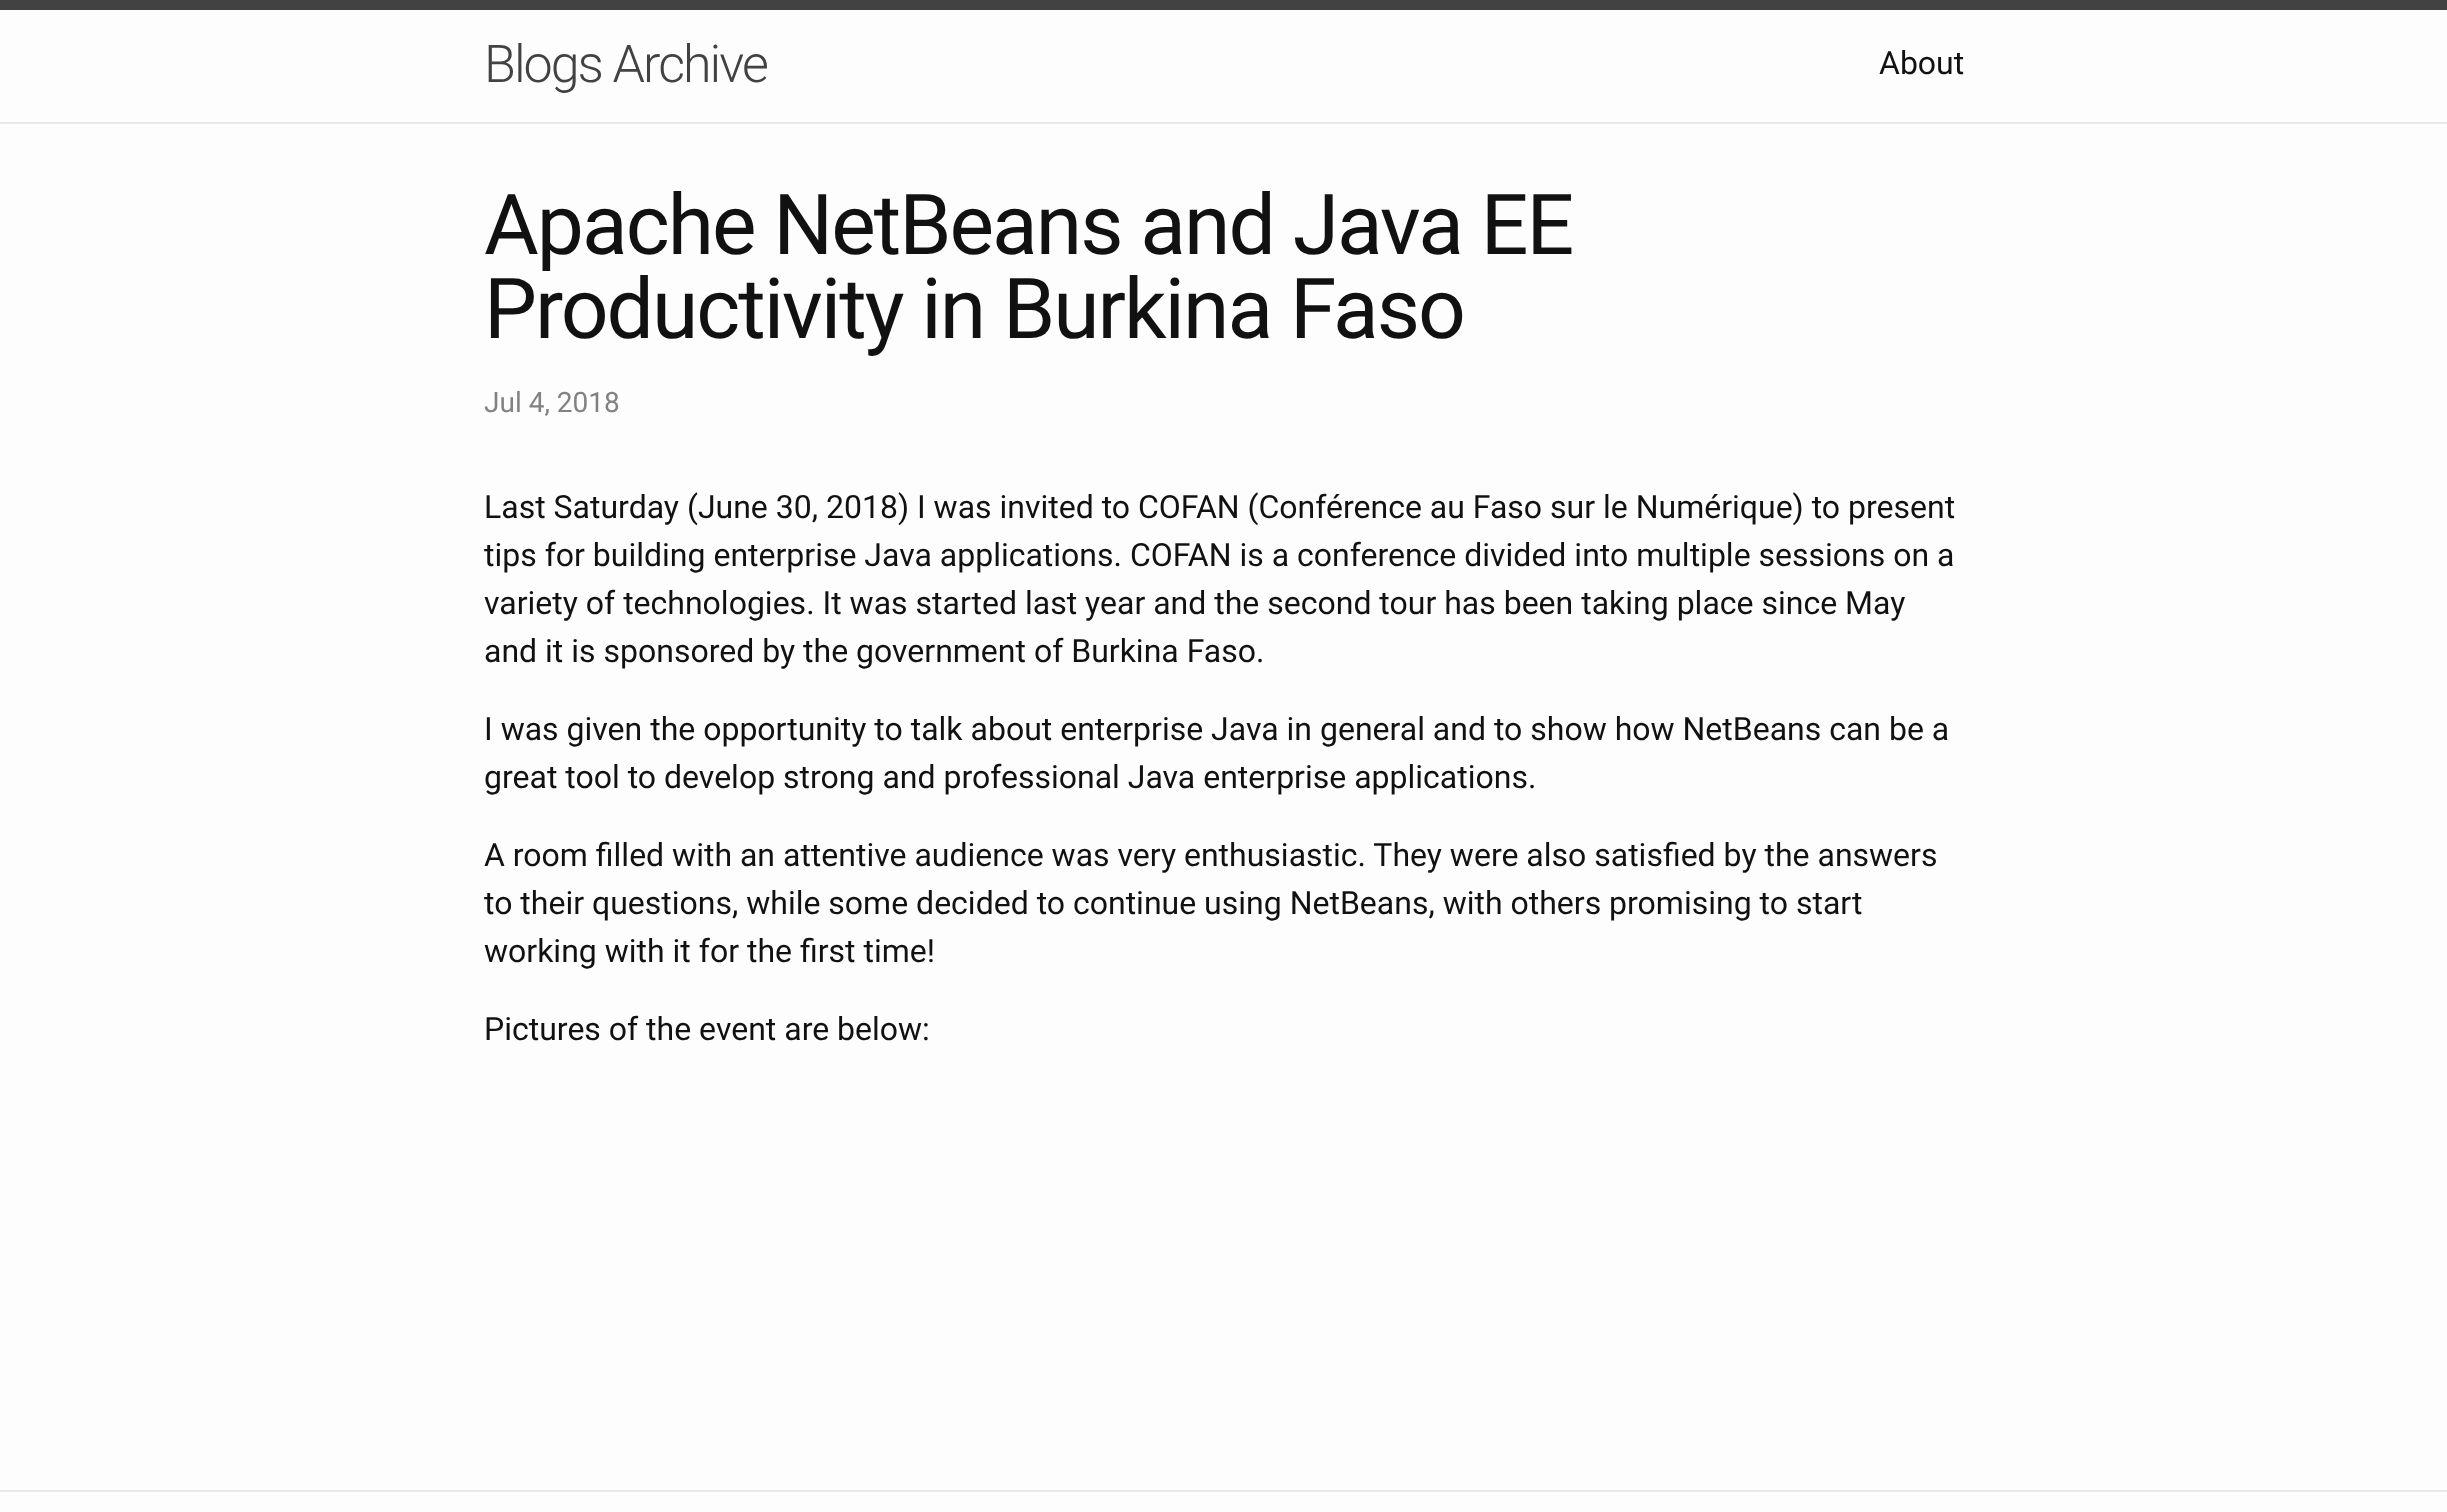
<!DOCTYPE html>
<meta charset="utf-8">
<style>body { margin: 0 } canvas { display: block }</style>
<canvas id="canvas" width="2447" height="1512"></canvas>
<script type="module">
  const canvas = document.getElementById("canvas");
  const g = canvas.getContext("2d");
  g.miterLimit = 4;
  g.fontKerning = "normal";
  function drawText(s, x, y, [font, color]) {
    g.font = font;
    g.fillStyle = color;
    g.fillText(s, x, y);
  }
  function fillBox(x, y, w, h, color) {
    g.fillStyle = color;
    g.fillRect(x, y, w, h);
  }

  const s1 = ["300 52px Roboto", "#424242"];
  const s2 = ["32px Roboto", "#111111"];
  const s3 = ["84px Roboto", "#111111"];
  const s4 = ["28px Roboto", "#828282"];

  fillBox(0, 0, 2447, 1512, "#FDFDFD");
  fillBox(0, 0, 2447, 10, "#424242");
  fillBox(0, 122, 2447, 2, "#E8E8E8");
  g.letterSpacing = "-2px";
  drawText("Blogs Archive", 484, 82, s1);
  g.letterSpacing = "0px";
  drawText("About", 1879, 74, s2);
  g.letterSpacing = "-2px";
  drawText("Apache NetBeans and Java EE", 484, 254, s3);
  drawText("Productivity in Burkina Faso", 484, 338, s3);
  g.letterSpacing = "0px";
  drawText("Jul 4, 2018", 484, 412, s4);
  drawText("Last Saturday (June 30, 2018) I was invited to COFAN (Conférence au Faso sur le Numérique) to present", 484, 518, s2);
  drawText("tips for building enterprise Java applications. COFAN is a conference divided into multiple sessions on a", 484, 566, s2);
  drawText("variety of technologies. It was started last year and the second tour has been taking place since May", 484, 614, s2);
  drawText("and it is sponsored by the government of Burkina Faso.", 484, 662, s2);
  drawText("I was given the opportunity to talk about enterprise Java in general and to show how NetBeans can be a", 484, 740, s2);
  drawText("great tool to develop strong and professional Java enterprise applications.", 484, 788, s2);
  drawText("A room filled with an attentive audience was very enthusiastic. They were also satisfied by the answers", 484, 866, s2);
  drawText("to their questions, while some decided to continue using NetBeans, with others promising to start", 484, 914, s2);
  drawText("working with it for the first time!", 484, 962, s2);
  drawText("Pictures of the event are below:", 484, 1040, s2);
  fillBox(0, 1490, 2447, 2, "#E8E8E8");
</script>
